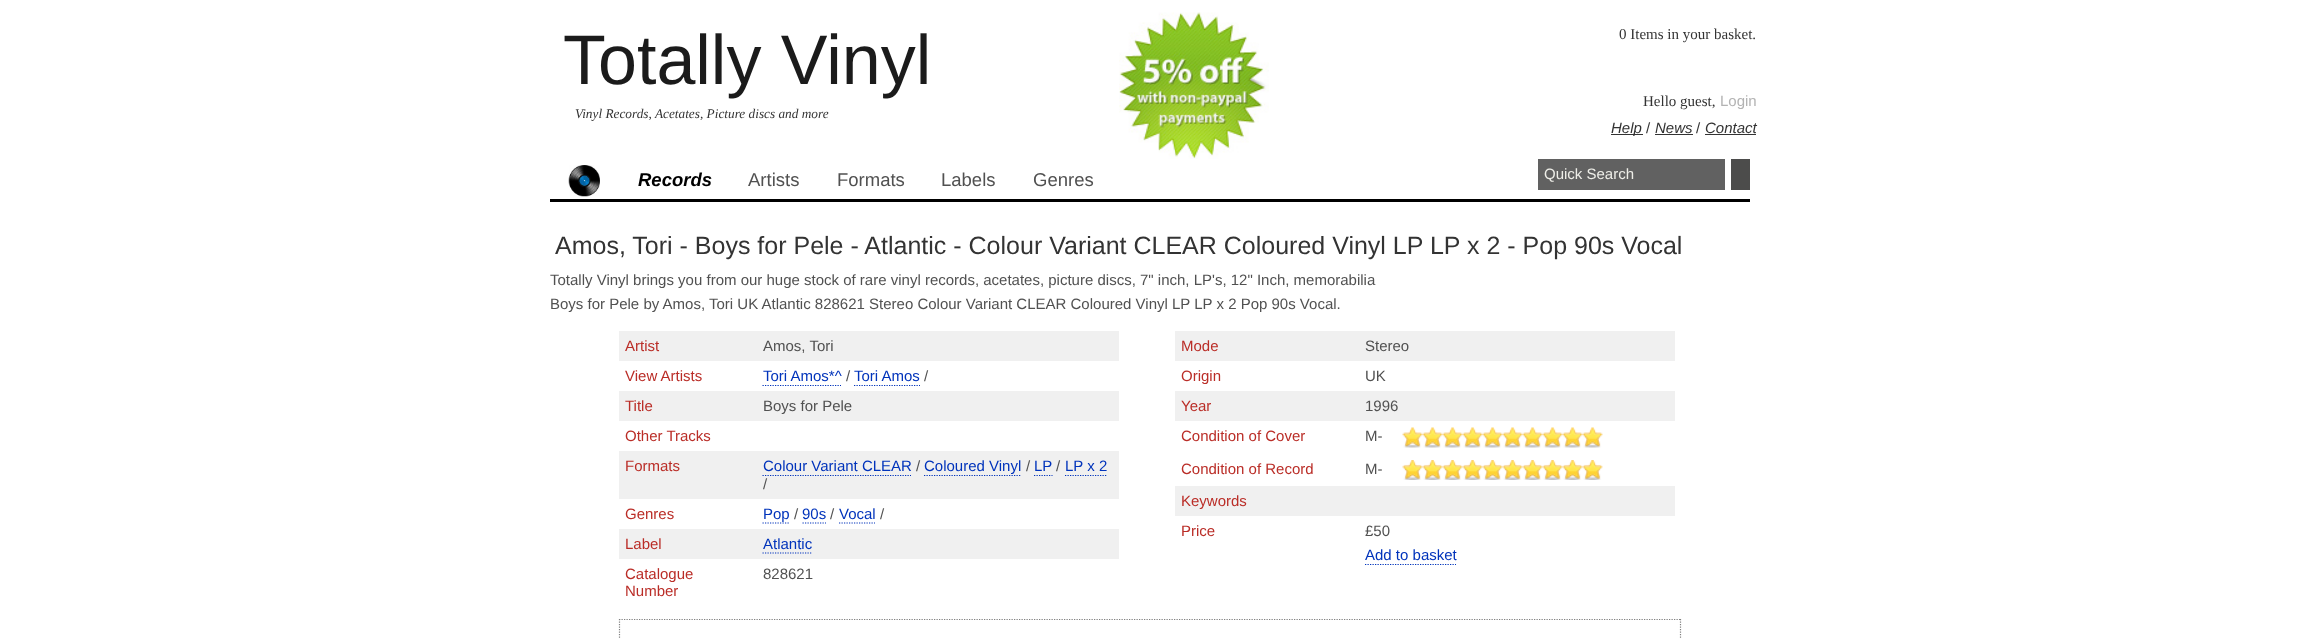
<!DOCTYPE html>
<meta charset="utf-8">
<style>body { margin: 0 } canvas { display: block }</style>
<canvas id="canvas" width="2299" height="639"></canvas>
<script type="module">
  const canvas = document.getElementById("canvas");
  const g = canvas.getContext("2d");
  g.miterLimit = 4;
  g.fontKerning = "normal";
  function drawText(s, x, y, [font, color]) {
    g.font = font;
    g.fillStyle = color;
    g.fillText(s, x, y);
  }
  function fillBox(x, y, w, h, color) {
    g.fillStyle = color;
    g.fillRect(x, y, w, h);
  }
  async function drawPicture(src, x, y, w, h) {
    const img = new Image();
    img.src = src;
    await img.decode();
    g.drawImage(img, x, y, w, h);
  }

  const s1 = ["70px Liberation Sans", "#1B1B1B"];
  const s2 = ["italic 13.3px Liberation Serif", "#333333"];
  const s3 = ["15px Liberation Serif", "#333333"];
  const s4 = ["15px Liberation Sans", "#B3B3B3"];
  const s5 = ["italic 15px Liberation Sans", "#333333"];
  const s6 = ["15px Liberation Sans", "#333333"];
  const s7 = ["italic bold 18.5px Liberation Sans", "#000000"];
  const s8 = ["18.5px Liberation Sans", "#515151"];
  const s9 = ["15px Liberation Sans", "#EEEEE8"];
  const s10 = ["25px Liberation Sans", "#333333"];
  const s11 = ["15px Liberation Sans", "#515151"];
  const s12 = ["15px Liberation Sans", "#BA2D27"];
  const s13 = ["15px Liberation Sans", "#0033BB"];

  fillBox(0, 0, 2299, 639, "#FFFFFF");
  await drawPicture("pic1.png", 1119, 12, 150, 147);
  drawText("Totally Vinyl", 563, 84, s1);
  drawText("Vinyl Records, Acetates, Picture discs and more", 575, 118, s2);
  drawText("0 Items in your basket.", 1619, 39, s3);
  drawText("Hello guest,", 1643, 106, s3);
  drawText("Login", 1720, 106, s4);
  fillBox(1611, 134, 32, 1, "#333333");
  drawText("Help", 1611, 133, s5);
  drawText("/", 1646, 133, s6);
  drawText("News", 1655, 133, s5);
  fillBox(1655, 134, 38, 1, "#333333");
  drawText("/", 1696, 133, s6);
  drawText("Contact", 1705, 133, s5);
  fillBox(1705, 134, 51, 1, "#333333");
  fillBox(550, 199, 1200, 3, "#000000");
  await drawPicture("pic2.png", 568, 165, 32, 32);
  drawText("Records", 638, 186, s7);
  drawText("Artists", 748, 186, s8);
  drawText("Formats", 837, 186, s8);
  drawText("Labels", 941, 186, s8);
  drawText("Genres", 1033, 186, s8);
  fillBox(1538, 159, 187, 31, "#616161");
  drawText("Quick Search", 1544, 179, s9);
  fillBox(1731, 159, 19, 31, "#4C4C4B");
  drawText("Amos, Tori - Boys for Pele - Atlantic - Colour Variant CLEAR Coloured Vinyl LP LP x 2 - Pop 90s Vocal", 555, 254, s10);
  drawText("Totally Vinyl brings you from our huge stock of rare vinyl records, acetates, picture discs, 7\" inch, LP's, 12\" Inch, memorabilia", 550, 285, s11);
  drawText("Boys for Pele by Amos, Tori UK Atlantic 828621 Stereo Colour Variant CLEAR Coloured Vinyl LP LP x 2 Pop 90s Vocal.", 550, 309, s11);
  fillBox(619, 331, 500, 30, "#F0F0F0");
  drawText("Artist", 625, 351, s12);
  drawText("Amos, Tori", 763, 351, s11);
  drawText("View Artists", 625, 381, s12);
  drawText("Tori Amos*^", 763, 381, s13);
  g.beginPath();
  g.moveTo(762.5, 385.5);
  g.lineTo(841, 385.5);
  g.strokeStyle = "#0033BB";
  g.lineWidth = 1.2;
  g.setLineDash([1.25, 1.25]);
  g.stroke();
  drawText("/", 846, 381, s11);
  drawText("Tori Amos", 854, 381, s13);
  g.beginPath();
  g.moveTo(854, 385.5);
  g.lineTo(920, 385.5);
  g.stroke();
  drawText("/", 924, 381, s11);
  fillBox(619, 391, 500, 30, "#F0F0F0");
  drawText("Title", 625, 411, s12);
  drawText("Boys for Pele", 763, 411, s11);
  drawText("Other Tracks", 625, 441, s12);
  fillBox(619, 451, 500, 48, "#F0F0F0");
  drawText("Formats", 625, 471, s12);
  drawText("Colour Variant CLEAR", 763, 471, s13);
  g.beginPath();
  g.moveTo(762.5, 475.5);
  g.lineTo(911, 475.5);
  g.stroke();
  drawText("/", 916, 471, s11);
  g.beginPath();
  g.moveTo(924, 475.5);
  g.lineTo(1021, 475.5);
  g.stroke();
  drawText("Coloured Vinyl", 924, 471, s13);
  drawText("/", 1026, 471, s11);
  drawText("LP", 1034, 471, s13);
  g.beginPath();
  g.moveTo(1034, 475.5);
  g.lineTo(1052.5, 475.5);
  g.stroke();
  drawText("/", 1056, 471, s11);
  drawText("LP x 2", 1065, 471, s13);
  g.beginPath();
  g.moveTo(1065, 475.5);
  g.lineTo(1107.5, 475.5);
  g.stroke();
  drawText("/", 763, 489, s11);
  drawText("Genres", 625, 519, s12);
  g.beginPath();
  g.moveTo(762.5, 523);
  g.lineTo(790, 523);
  g.stroke();
  drawText("Pop", 763, 519, s13);
  drawText("/", 794, 519, s11);
  drawText("90s", 802, 519, s13);
  g.beginPath();
  g.moveTo(802.5, 523);
  g.lineTo(826, 523);
  g.stroke();
  drawText("/", 830, 519, s11);
  drawText("Vocal", 839, 519, s13);
  g.beginPath();
  g.moveTo(839, 523);
  g.lineTo(875, 523);
  g.stroke();
  drawText("/", 880, 519, s11);
  fillBox(619, 529, 500, 30, "#F0F0F0");
  drawText("Label", 625, 549, s12);
  drawText("Atlantic", 763, 549, s13);
  g.beginPath();
  g.moveTo(762.5, 553);
  g.lineTo(812.5, 553);
  g.stroke();
  drawText("Catalogue", 625, 579, s12);
  drawText("Number", 625, 596, s12);
  drawText("828621", 763, 579, s11);
  fillBox(1175, 331, 500, 30, "#F0F0F0");
  drawText("Mode", 1181, 351, s12);
  drawText("Stereo", 1365, 351, s11);
  drawText("Origin", 1181, 381, s12);
  drawText("UK", 1365, 381, s11);
  fillBox(1175, 391, 500, 30, "#F0F0F0");
  drawText("Year", 1181, 411, s12);
  drawText("1996", 1365, 411, s11);
  drawText("Condition of Cover", 1181, 441, s12);
  drawText("M-", 1365, 441, s11);
  await drawPicture("pic3.png", 1402, 427, 21, 21);
  await drawPicture("pic4.png", 1422, 427, 21, 21);
  await drawPicture("pic4.png", 1442, 427, 21, 21);
  await drawPicture("pic4.png", 1462, 427, 21, 21);
  await drawPicture("pic4.png", 1482, 427, 21, 21);
  await drawPicture("pic4.png", 1502, 427, 21, 21);
  await drawPicture("pic4.png", 1522, 427, 21, 21);
  await drawPicture("pic4.png", 1542, 427, 21, 21);
  await drawPicture("pic5.png", 1562, 427, 21, 21);
  await drawPicture("pic4.png", 1582, 427, 21, 21);
  drawText("Condition of Record", 1181, 474, s12);
  drawText("M-", 1365, 474, s11);
  await drawPicture("pic6.png", 1402, 460, 21, 20);
  await drawPicture("pic7.png", 1422, 460, 21, 20);
  await drawPicture("pic7.png", 1442, 460, 21, 20);
  await drawPicture("pic7.png", 1462, 460, 21, 20);
  await drawPicture("pic7.png", 1482, 460, 21, 20);
  await drawPicture("pic7.png", 1502, 460, 21, 20);
  await drawPicture("pic7.png", 1522, 460, 21, 20);
  await drawPicture("pic7.png", 1542, 460, 21, 20);
  await drawPicture("pic8.png", 1562, 460, 21, 20);
  await drawPicture("pic7.png", 1582, 460, 21, 20);
  fillBox(1175, 486, 500, 30, "#F0F0F0");
  drawText("Keywords", 1181, 506, s12);
  drawText("Price", 1181, 536, s12);
  drawText("£50", 1365, 536, s11);
  drawText("Add to basket", 1365, 560, s13);
  g.beginPath();
  g.moveTo(1365, 564.5);
  g.lineTo(1456, 564.5);
  g.stroke();
  g.beginPath();
  g.moveTo(619, 619.5);
  g.lineTo(1681, 619.5);
  g.strokeStyle = "#808080";
  g.stroke();
  g.beginPath();
  g.moveTo(1680.5, 619);
  g.lineTo(1680.5, 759);
  g.stroke();
  g.beginPath();
  g.moveTo(619.5, 619);
  g.lineTo(619.5, 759);
  g.stroke();
</script>
